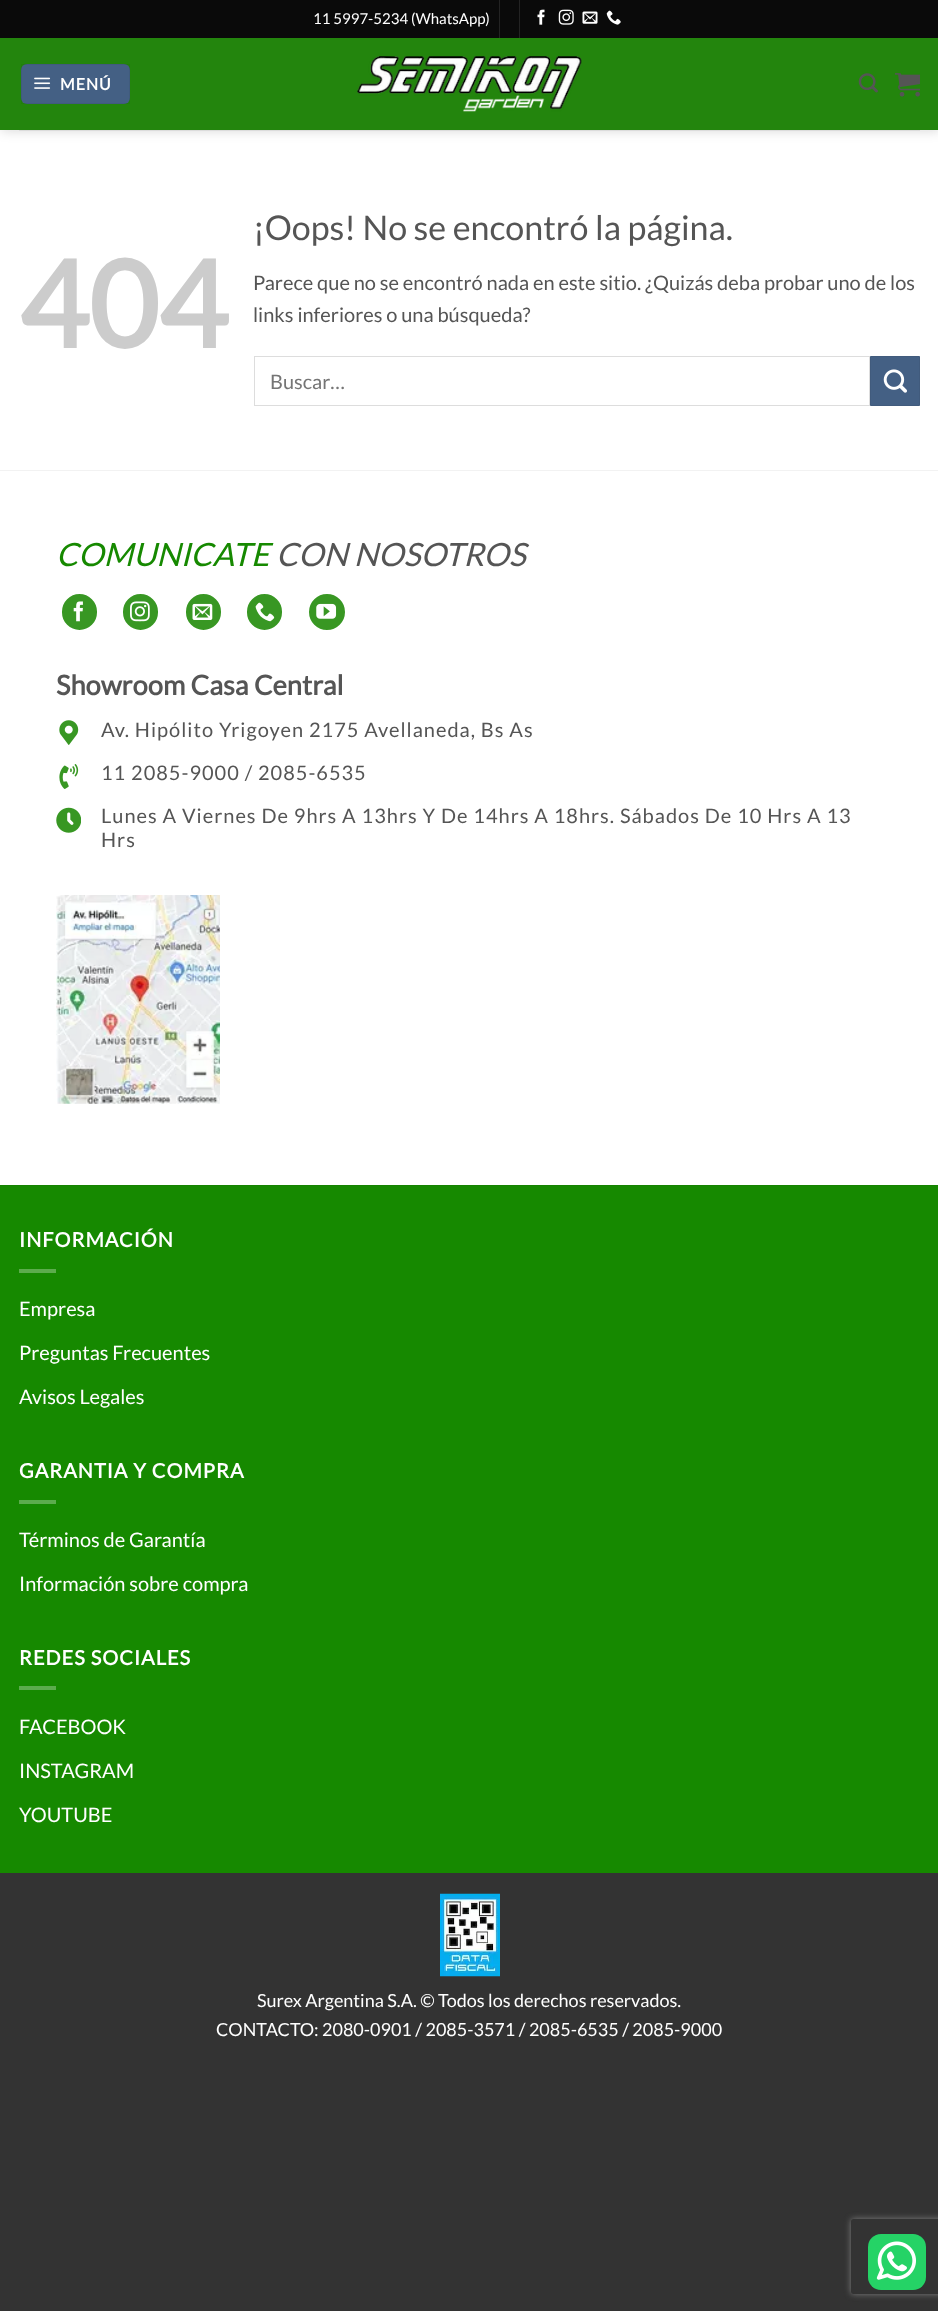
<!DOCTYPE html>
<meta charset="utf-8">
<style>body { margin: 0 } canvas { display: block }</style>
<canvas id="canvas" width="938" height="2311"></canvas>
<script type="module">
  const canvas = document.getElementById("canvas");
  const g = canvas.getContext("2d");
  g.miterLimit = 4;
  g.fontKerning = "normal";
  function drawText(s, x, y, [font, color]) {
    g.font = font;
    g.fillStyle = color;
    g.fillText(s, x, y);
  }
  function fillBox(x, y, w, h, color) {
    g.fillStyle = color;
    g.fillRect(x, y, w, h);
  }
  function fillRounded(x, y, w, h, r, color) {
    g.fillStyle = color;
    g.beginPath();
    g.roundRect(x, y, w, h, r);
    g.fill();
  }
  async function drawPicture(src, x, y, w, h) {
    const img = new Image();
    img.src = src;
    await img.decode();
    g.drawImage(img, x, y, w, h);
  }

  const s1 = ["15px Lato", "#FFFFFF"];
  const s2 = ["bold 16px Lato", "#FFFFFF"];
  const s3 = ["bold 120px Lato", "#CCCCCC"];
  const s4 = ["34px Lato", "#555555"];
  const s5 = ["20px Lato", "#555555"];
  const s6 = ["20px Lato", "#757575"];
  const s7 = ["italic 32px Lato", "#168900"];
  const s8 = ["italic 32px Lato", "#555555"];
  const s9 = ["bold 27.25px Lato", "#555555"];
  const s10 = ["bold 20px Lato", "#FFFFFF"];
  const s11 = ["20px Lato", "#FFFFFF"];
  const s12 = ["18px Lato", "#FFFFFF"];

  fillBox(0, 0, 938, 2311, "#333333");
  fillBox(0, 130, 938, 1055, "#FFFFFF");
  g.fillStyle = "rgba(0, 0, 0, 0.15)";
  g.filter = "blur(6px)";
  g.beginPath();
  g.rect(1, 1, 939, 130);
  g.fill();
  g.filter = "none";
  fillBox(0, 0, 938, 38, "#0A0A0A");
  drawText("11 5997-5234 (WhatsApp)", 313, 24, s1);
  fillBox(499, 0, 1, 38, "#232323");
  fillBox(519, 0, 1, 38, "#232323");
  await drawPicture("pic1.png", 537, 9, 8, 16);
  await drawPicture("pic2.png", 558, 9, 16, 16);
  await drawPicture("pic3.png", 582, 11, 16, 13);
  await drawPicture("pic4.png", 606, 10, 15, 15);
  fillBox(0, 38, 938, 92, "#23850D");
  fillRounded(21, 64, 109, 40, 6, "#446084");
  g.strokeStyle = "rgba(0, 0, 0, 0.05)";
  g.strokeRect(21.5, 64.5, 108, 39);
  await drawPicture("pic5.png", 34, 77, 17, 12);
  g.letterSpacing = "1px";
  drawText("MENÚ", 60, 90, s2);
  await drawPicture("pic6.png", 357, 56, 225, 56);
  await drawPicture("pic7.png", 858, 73, 20, 20);
  await drawPicture("pic8.png", 895, 73, 25, 24);
  fillBox(19, 130, 901, 1, "#DCDCDC");
  g.letterSpacing = "0px";
  drawText("404", 19, 348, s3);
  drawText("¡Oops! No se encontró la página.", 253, 240, s4);
  drawText("Parece que no se encontró nada en este sitio. ¿Quizás deba probar uno de los", 253, 290, s5);
  drawText("links inferiores o una búsqueda?", 253, 322, s5);
  g.strokeStyle = "#DDDDDD";
  g.strokeRect(254.5, 356.5, 615, 49);
  drawText("Buscar…", 270, 389, s6);
  g.fillStyle = "#446084";
  g.beginPath();
  g.rect(870.5, 356.5, 49, 49);
  g.fill();
  g.strokeStyle = "#415B7D";
  g.stroke();
  await drawPicture("pic9.png", 883, 369, 24, 24);
  fillBox(0, 470, 938, 1, "#F2F2F2");
  drawText("COMUNICATE", 56, 566, s7);
  drawText("CON NOSOTROS", 276, 566, s8);
  g.fillStyle = "#389723";
  g.beginPath();
  g.roundRect(60.5, 592.5, 38, 39, 19);
  g.fill();
  g.strokeStyle = "#FFFFFF";
  g.lineWidth = 3;
  g.stroke();
  await drawPicture("pic10.png", 73, 601, 10, 21);
  g.beginPath();
  g.roundRect(121.5, 592.5, 38, 39, 19);
  g.fill();
  g.stroke();
  await drawPicture("pic11.png", 130, 601, 20, 21);
  g.beginPath();
  g.roundRect(184.5, 592.5, 38, 39, 19);
  g.fill();
  g.stroke();
  await drawPicture("pic12.png", 192, 603, 21, 17);
  g.beginPath();
  g.roundRect(245.5, 592.5, 38, 39, 19);
  g.fill();
  g.stroke();
  await drawPicture("pic13.png", 255, 602, 20, 20);
  g.beginPath();
  g.arc(327, 612, 19.5, 0, Math.PI * 2);
  g.fill();
  g.stroke();
  await drawPicture("pic14.png", 316, 603, 21, 16);
  drawText("Showroom Casa Central", 56, 695, s9);
  await drawPicture("pic15.png", 59, 720, 20, 25);
  g.letterSpacing = "1px";
  drawText("Av. Hipólito Yrigoyen 2175 Avellaneda, Bs As", 101, 737, s5);
  await drawPicture("pic16.png", 59, 764, 20, 25);
  drawText("11 2085-9000 / 2085-6535", 101, 780, s5);
  await drawPicture("pic17.png", 56, 807, 25, 26);
  drawText("Lunes A Viernes De 9hrs A 13hrs Y De 14hrs A 18hrs. Sábados De 10 Hrs A 13", 101, 823, s5);
  drawText("Hrs", 101, 847, s5);
  await drawPicture("pic18.png", 56, 895, 164, 209);
  fillBox(0, 1186, 938, 687, "#168900");
  fillBox(0, 1185, 938, 1, "#158200");
  drawText("INFORMACIÓN", 19, 1247, s10);
  fillBox(19, 1269, 37, 4, "#5CAC4D");
  g.letterSpacing = "0px";
  drawText("Empresa", 19, 1316, s11);
  drawText("Preguntas Frecuentes", 19, 1360, s11);
  drawText("Avisos Legales", 19, 1404, s11);
  g.letterSpacing = "1px";
  drawText("GARANTIA Y COMPRA", 19, 1478, s10);
  fillBox(19, 1500, 37, 4, "#5CAC4D");
  g.letterSpacing = "0px";
  drawText("Términos de Garantía", 19, 1547, s11);
  drawText("Información sobre compra", 19, 1591, s11);
  g.letterSpacing = "1px";
  drawText("REDES SOCIALES", 19, 1665, s10);
  fillBox(19, 1686, 37, 4, "#5CAC4D");
  g.letterSpacing = "0px";
  drawText("FACEBOOK", 19, 1734, s11);
  drawText("INSTAGRAM", 19, 1778, s11);
  drawText("YOUTUBE", 19, 1822, s11);
  await drawPicture("pic19.png", 440, 1893, 60, 84);
  drawText("Surex Argentina S.A. © Todos los derechos reservados.", 257, 2007, s12);
  drawText("CONTACTO: 2080-0901 / 2085-3571 / 2085-6535 / 2085-9000", 216, 2036, s12);
  g.save();
  g.beginPath();
  g.moveTo(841, 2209);
  g.lineTo(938, 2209);
  g.lineTo(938, 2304);
  g.lineTo(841, 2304);
  g.closePath();
  g.moveTo(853.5, 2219);
  g.lineTo(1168.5, 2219);
  g.bezierCurveTo(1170, 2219, 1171, 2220, 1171, 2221.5);
  g.lineTo(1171, 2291.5);
  g.bezierCurveTo(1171, 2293, 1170, 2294, 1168.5, 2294);
  g.lineTo(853.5, 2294);
  g.bezierCurveTo(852, 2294, 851, 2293, 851, 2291.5);
  g.lineTo(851, 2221.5);
  g.bezierCurveTo(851, 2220, 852, 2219, 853.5, 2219);
  g.closePath();
  g.clip("evenodd");
  g.fillStyle = "#808080";
  g.filter = "blur(3px)";
  g.beginPath();
  g.roundRect(851, 2219, 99, 75, 2.5);
  g.fill();
  g.filter = "none";
  g.restore();
  fillRounded(868, 2234, 58, 56, 13, "#25D366");
  await drawPicture("pic20.png", 876, 2241, 40, 39);
</script>
